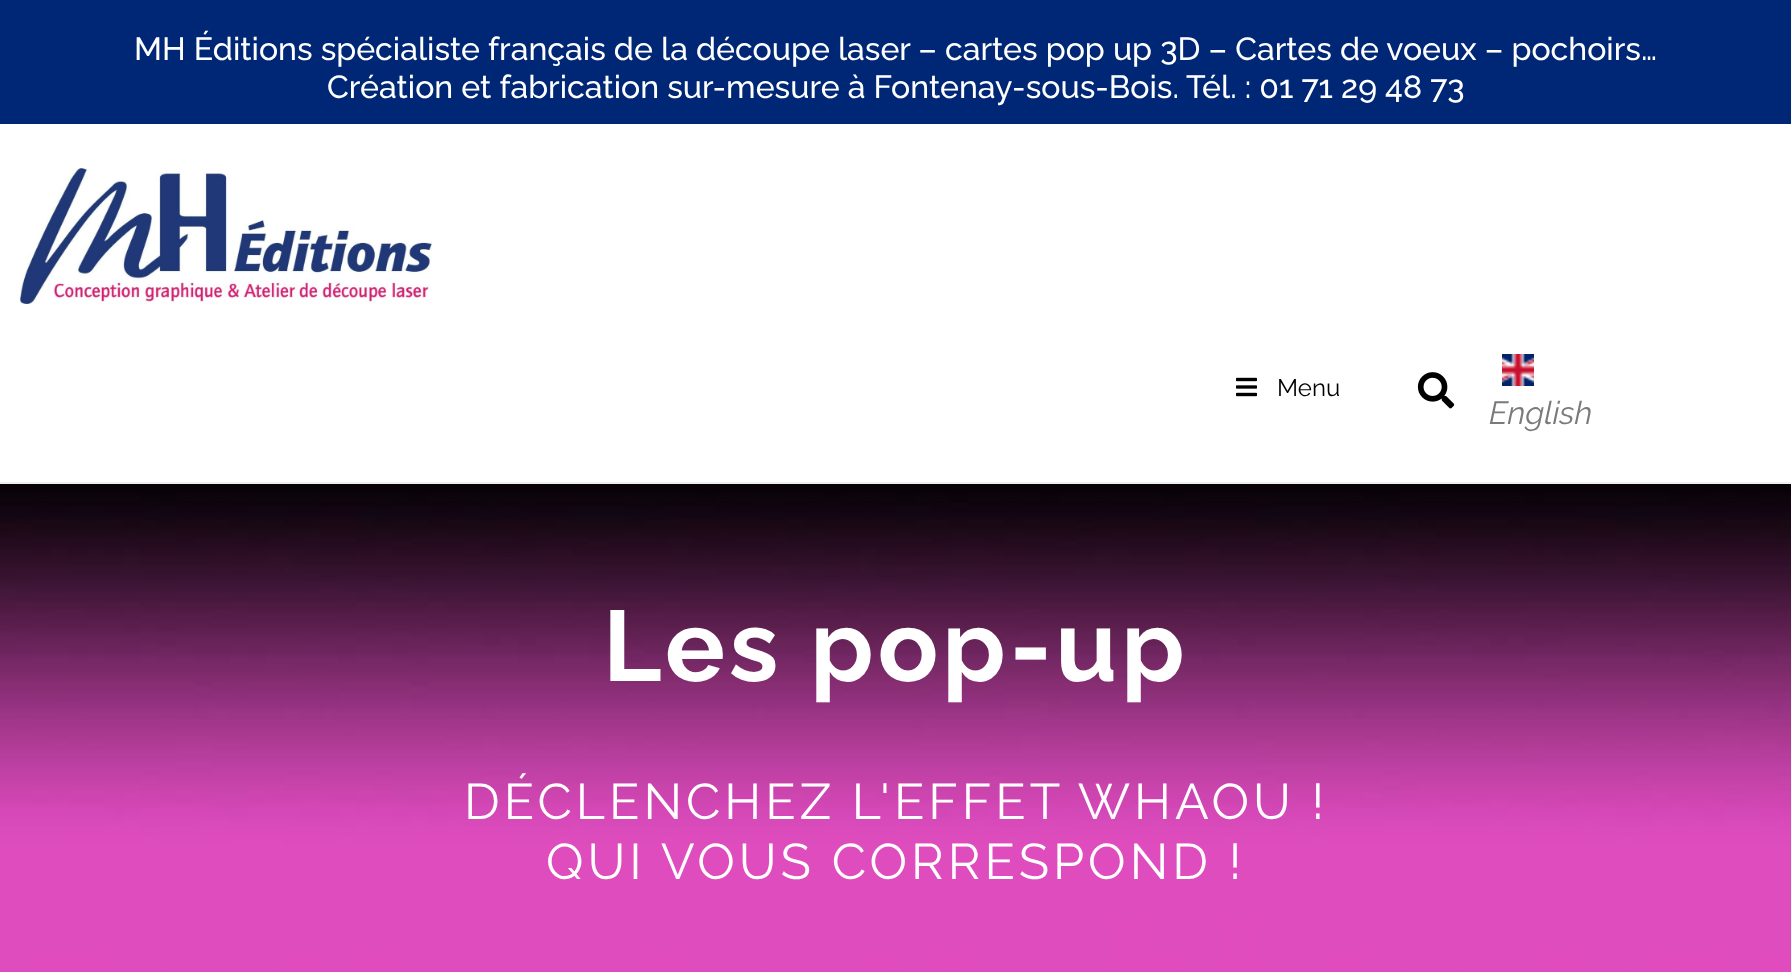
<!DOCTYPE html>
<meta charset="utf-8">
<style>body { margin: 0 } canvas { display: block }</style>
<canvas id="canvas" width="1791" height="977"></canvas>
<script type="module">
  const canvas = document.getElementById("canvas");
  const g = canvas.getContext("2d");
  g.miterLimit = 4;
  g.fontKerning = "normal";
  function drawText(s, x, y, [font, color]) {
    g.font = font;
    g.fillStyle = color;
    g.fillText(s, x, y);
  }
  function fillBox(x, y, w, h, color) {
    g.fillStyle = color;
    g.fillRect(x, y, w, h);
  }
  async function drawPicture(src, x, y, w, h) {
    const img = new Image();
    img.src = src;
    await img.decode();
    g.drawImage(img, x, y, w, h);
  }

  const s1 = ["500 32px Raleway", "#FFFFFF"];
  const s2 = ["24px Raleway", "#000000"];
  const s3 = ["italic 32px Raleway", "#7A7A7A"];
  const s4 = ["bold 100px Raleway", "#FFFFFF"];
  const s5 = ["50px Raleway", "#FFFFFF"];

  fillBox(0, 0, 1791, 977, "#FFFFFF");
  fillBox(0, 0, 1791, 124, "#002775");
  drawText("MH Éditions spécialiste français de la découpe laser – cartes pop up 3D – Cartes de voeux – pochoirs…", 134, 60, s1);
  drawText("Création et fabrication sur-mesure à Fontenay-sous-Bois. Tél. : 01 71 29 48 73", 327, 98, s1);
  fillBox(0, 482, 1791, 2, "#F0F0F0");
  await drawPicture("pic1.png", 20, 168, 412, 136);
  await drawPicture("pic2.png", 1236, 377, 21, 20);
  drawText("Menu", 1277, 396, s2);
  await drawPicture("pic3.png", 1417, 372, 38, 37);
  await drawPicture("pic4.png", 1502, 354, 32, 32);
  drawText("English", 1489, 424, s3);
  await drawPicture("pic5.png", 0, 484, 1791, 488);
  g.letterSpacing = "4px";
  drawText("Les pop-up", 603, 681, s4);
  drawText("DÉCLENCHEZ L'EFFET WHAOU !", 464, 819, s5);
  drawText("QUI VOUS CORRESPOND !", 546, 879, s5);
</script>
